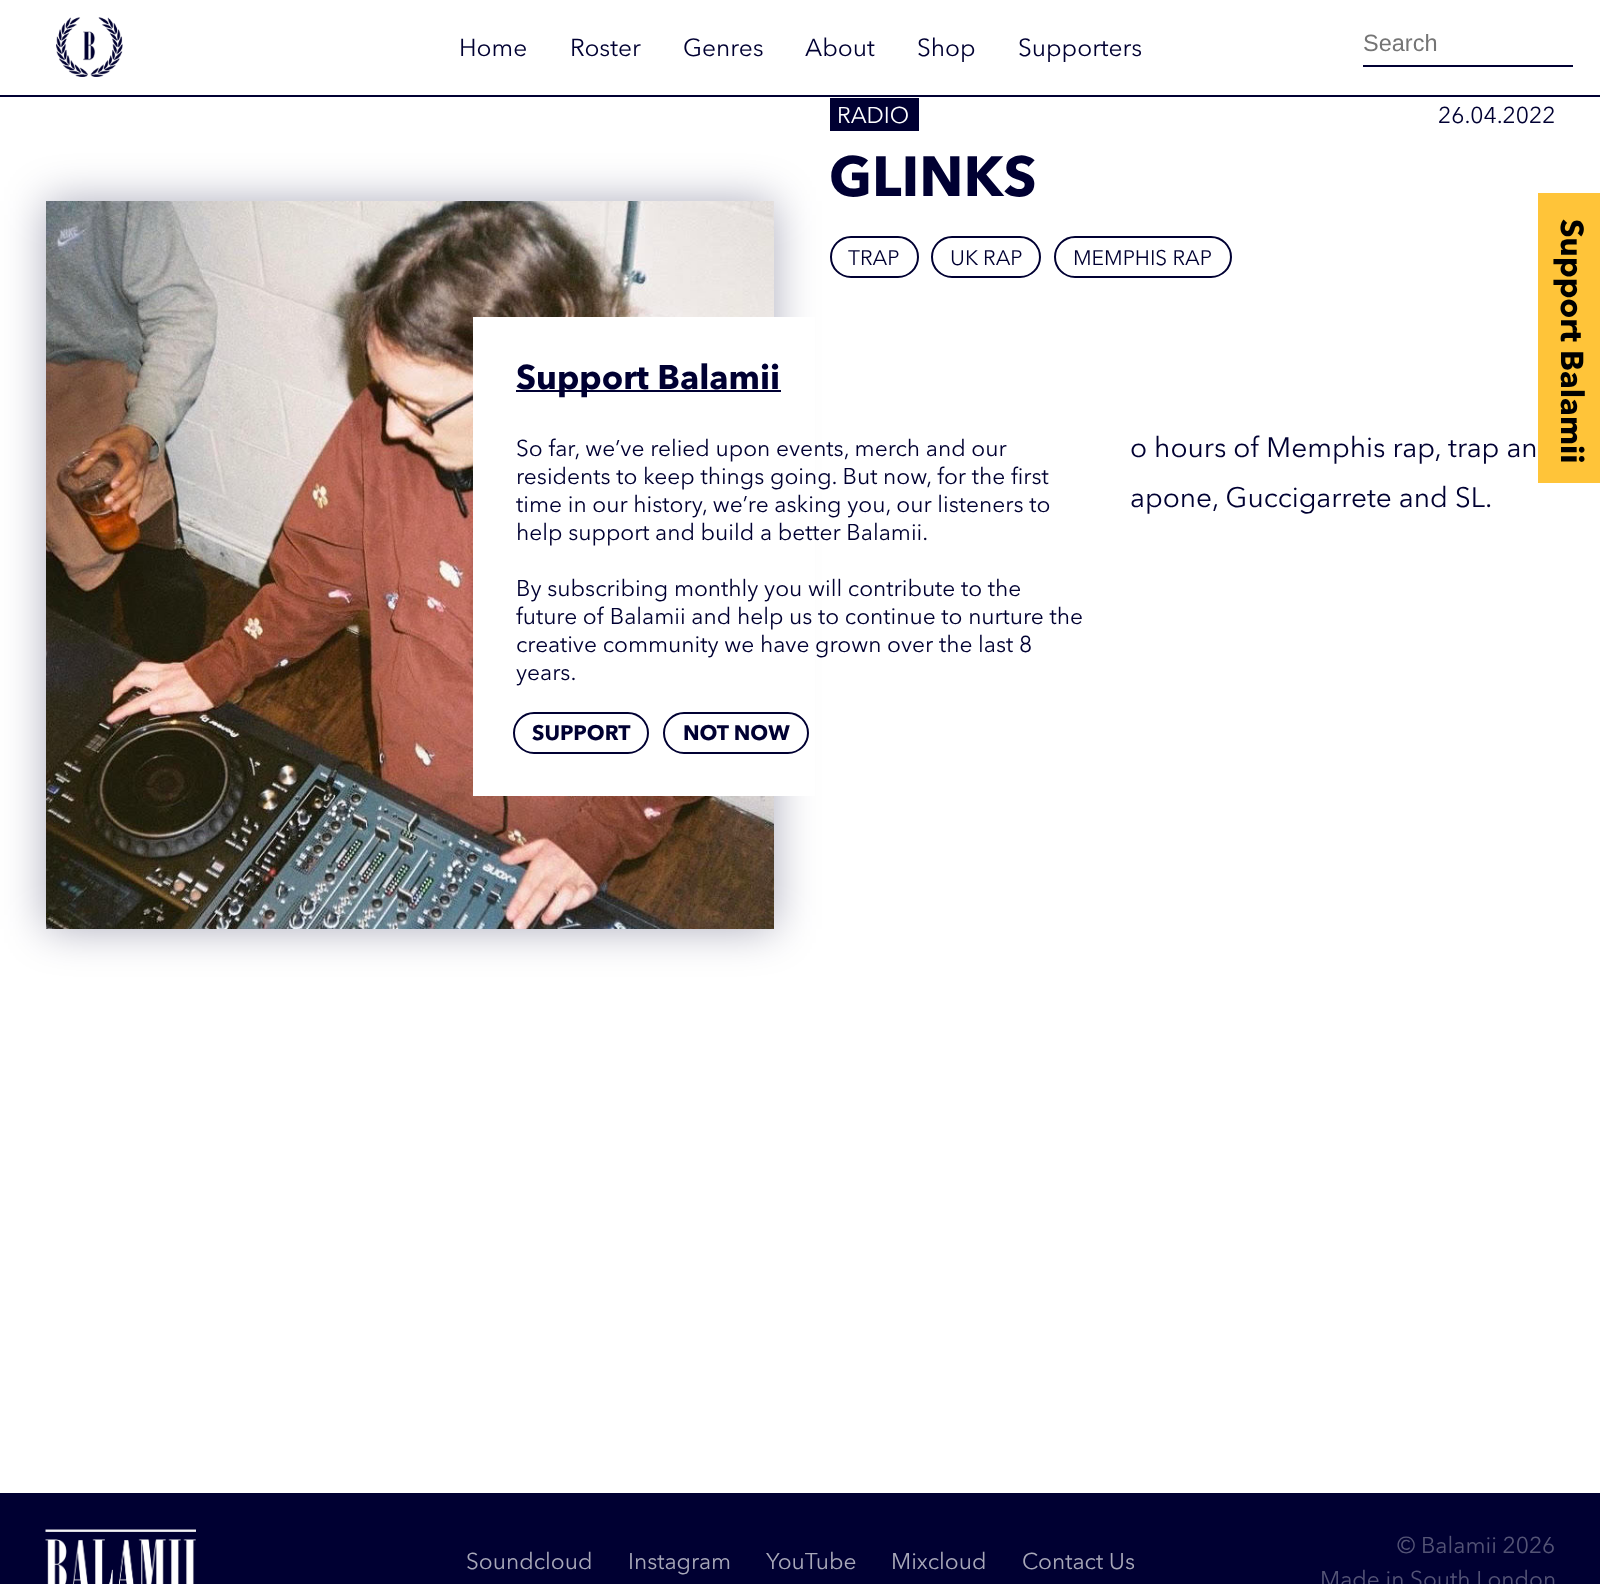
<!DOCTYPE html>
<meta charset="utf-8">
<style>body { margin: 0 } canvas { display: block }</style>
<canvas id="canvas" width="1600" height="1584"></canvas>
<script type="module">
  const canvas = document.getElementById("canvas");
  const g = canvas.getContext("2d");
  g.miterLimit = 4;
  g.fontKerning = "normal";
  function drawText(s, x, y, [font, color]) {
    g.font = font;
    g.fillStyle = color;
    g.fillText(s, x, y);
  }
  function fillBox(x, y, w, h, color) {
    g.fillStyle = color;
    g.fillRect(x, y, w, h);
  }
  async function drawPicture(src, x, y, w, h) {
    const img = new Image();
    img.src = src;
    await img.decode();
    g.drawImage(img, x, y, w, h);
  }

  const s1 = ["24.5px Avenir Next", "#000032"];
  const s2 = ["23.5px Liberation Sans", "#757575"];
  const s3 = ["bold 34px Avenir Next", "#000032"];
  const s4 = ["22.75px Avenir Next", "#000032"];
  const s5 = ["bold 21px Avenir Next", "#000032"];
  const s6 = ["22.75px Avenir Next", "#FFFFFF"];
  const s7 = ["bold 56px Avenir Next", "#000032"];
  const s8 = ["21px Avenir Next", "#000032"];
  const s9 = ["28px Avenir Next", "#000032"];
  const s10 = ["22.75px Avenir Next", "#A8A8B9"];
  const s11 = ["22.75px Avenir Next", "#545476"];

  fillBox(0, 0, 1600, 1584, "#FFFFFF");
  fillBox(0, 95, 1600, 2, "#000032");
  await drawPicture("pic1.png", 56, 17, 67, 60);
  drawText("Home", 459, 56, s1);
  drawText("Roster", 570, 56, s1);
  drawText("Genres", 683, 56, s1);
  drawText("About", 805, 56, s1);
  drawText("Shop", 917, 56, s1);
  drawText("Supporters", 1018, 56, s1);
  fillBox(1363, 65, 210, 2, "#000032");
  drawText("Search", 1363, 51, s2);
  g.beginPath();
  g.roundRect(831, 237, 87, 40, 20);
  g.strokeStyle = "#000032";
  g.lineWidth = 2;
  g.stroke();
  g.fillStyle = "rgba(0, 2, 49, 0.33)";
  g.filter = "blur(22px)";
  g.beginPath();
  g.rect(46, 201, 728, 728);
  g.fill();
  g.filter = "none";
  await drawPicture("pic2.png", 46, 201, 728, 728);
  fillBox(473, 317, 342, 479, "#FFFFFF");
  fillBox(516, 390, 265, 2, "#000032");
  drawText("Support Balamii", 516, 389, s3);
  drawText("So far, we’ve relied upon events, merch and our", 516, 456, s4);
  drawText("residents to keep things going. But now, for the first", 516, 484, s4);
  drawText("time in our history, we’re asking you, our listeners to", 516, 512, s4);
  drawText("help support and build a better Balamii.", 516, 540, s4);
  drawText("By subscribing monthly you will contribute to the", 516, 596, s4);
  drawText("future of Balamii and help us to continue to nurture the", 516, 624, s4);
  drawText("creative community we have grown over the last 8", 516, 652, s4);
  drawText("years.", 516, 680, s4);
  g.beginPath();
  g.roundRect(514, 713, 134, 40, 20);
  g.stroke();
  drawText("SUPPORT", 532, 740, s5);
  g.beginPath();
  g.roundRect(664, 713, 144, 40, 20);
  g.stroke();
  drawText("NOT NOW", 683, 740, s5);
  fillBox(830, 98, 89, 33, "#000032");
  drawText("RADIO", 837, 123, s6);
  drawText("26.04.2022", 1438, 123, s4);
  drawText("GLINKS", 829, 196, s7);
  drawText("TRAP", 848, 265, s8);
  g.beginPath();
  g.roundRect(932, 237, 108, 40, 20);
  g.stroke();
  drawText("UK RAP", 950, 265, s8);
  g.beginPath();
  g.roundRect(1055, 237, 176, 40, 20);
  g.stroke();
  drawText("MEMPHIS RAP", 1073, 265, s8);
  drawText("o hours of Memphis rap, trap an", 1130, 457, s9);
  drawText("apone, Guccigarrete and SL.", 1130, 507, s9);
  fillBox(1538, 193, 62, 290, "#FFC439");
  g.font = "bold 31.5px Avenir Next";
  g.fillStyle = "#000000";
  g.save();
  g.translate(1561, 219);
  g.rotate(90 * Math.PI / 180);
  g.fillText("Support Balamii", 0, 0);
  g.restore();
  fillBox(0, 1493, 1600, 91, "#000032");
  await drawPicture("pic3.png", 45, 1529, 151, 55);
  drawText("Soundcloud", 466, 1569, s10);
  drawText("Instagram", 628, 1569, s10);
  drawText("YouTube", 766, 1569, s10);
  drawText("Mixcloud", 891, 1569, s10);
  drawText("Contact Us", 1022, 1569, s10);
  drawText("© Balamii 2026", 1397, 1553, s11);
  drawText("Made in South London", 1320, 1587, s11);
</script>
